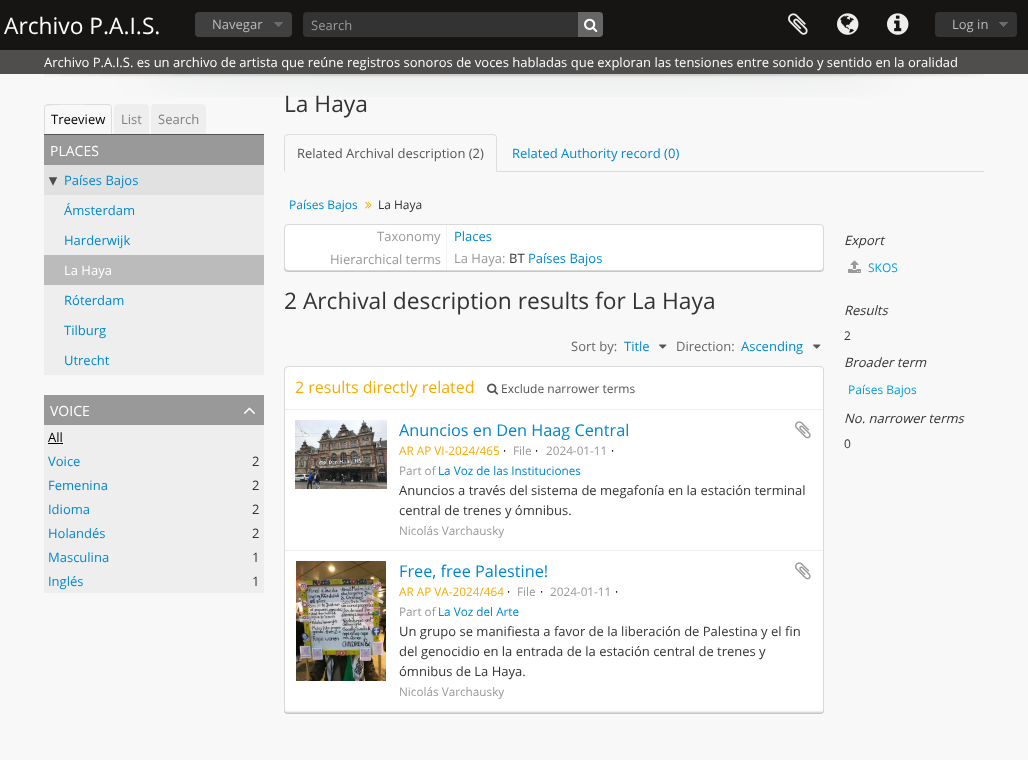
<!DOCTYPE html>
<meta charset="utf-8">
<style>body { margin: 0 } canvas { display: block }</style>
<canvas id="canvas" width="1028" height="760"></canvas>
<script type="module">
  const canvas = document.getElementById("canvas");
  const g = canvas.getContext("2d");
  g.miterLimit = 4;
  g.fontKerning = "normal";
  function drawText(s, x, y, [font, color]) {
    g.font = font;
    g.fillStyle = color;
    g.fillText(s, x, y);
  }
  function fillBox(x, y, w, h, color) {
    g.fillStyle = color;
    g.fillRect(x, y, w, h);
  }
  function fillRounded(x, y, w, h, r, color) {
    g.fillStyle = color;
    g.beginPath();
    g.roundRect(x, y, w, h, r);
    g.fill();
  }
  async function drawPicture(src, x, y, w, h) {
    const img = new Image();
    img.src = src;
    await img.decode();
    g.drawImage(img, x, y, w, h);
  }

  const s1 = ["22.75px Open Sans", "#FFFFFF"];
  const s2 = ["13px Open Sans", "#BBBBBB"];
  const s3 = ["13px Open Sans", "#999999"];
  const s4 = ["13px Open Sans", "#FFFFFF"];
  const s5 = ["13px Open Sans", "#000000"];
  const s6 = ["13px Open Sans", "#808080"];
  const s7 = ["14px Open Sans", "#FFFFFF"];
  const s8 = ["13px Open Sans", "#0088CC"];
  const s9 = ["13px Open Sans", "#333333"];
  const s10 = ["22.75px Open Sans", "#333333"];
  const s11 = ["13px Open Sans", "#555555"];
  const s12 = ["12px Open Sans", "#0088CC"];
  const s13 = ["12px Open Sans", "#333333"];
  const s14 = ["13px Open Sans", "#666666"];
  const s15 = ["16px Open Sans", "#F6AC00"];
  const s16 = ["12px Open Sans", "#555555"];
  const s17 = ["16.25px Open Sans", "#0088CC"];
  const s18 = ["11.75px Open Sans", "#F6AC00"];
  const s19 = ["11.75px Open Sans", "#000000"];
  const s20 = ["11.75px Open Sans", "#999999"];
  const s21 = ["11.75px Open Sans", "#0088CC"];
  const s22 = ["italic 13px Open Sans", "#333333"];
  const s23 = ["12px Open Sans", "#049CDB"];

  fillBox(0, 0, 1028, 760, "#F8F8F8");
  fillBox(0, 0, 1028, 50, "#161514");
  drawText("Archivo P.A.I.S.", 4, 34, s1);
  fillRounded(195, 12, 97, 25, 4, "#404040");
  await drawPicture("pic1.png", 274, 22, 9, 5);
  drawText("Navegar", 212, 29, s2);
  fillRounded(303, 12, 300, 25, 4, "#333333");
  g.fillStyle = "rgba(0, 0, 0, 0.07)";
  g.beginPath();
  g.moveTo(307, 13);
  g.lineTo(601, 13);
  g.bezierCurveTo(602, 13, 603, 14, 603, 16);
  g.bezierCurveTo(603, 14, 601, 12, 599, 12);
  g.lineTo(307, 12);
  g.bezierCurveTo(304, 12, 303, 14, 303, 16);
  g.bezierCurveTo(303, 14, 305, 13, 307, 13);
  g.closePath();
  g.fill();
  drawText("Search", 311, 30, s3);
  g.fillStyle = "#666666";
  g.beginPath();
  g.roundRect(578, 12, 25, 25, [0, 4, 4, 0]);
  g.fill();
  await drawPicture("pic2.png", 584, 18, 14, 14);
  await drawPicture("pic3.png", 788, 13, 20, 22);
  await drawPicture("pic4.png", 837, 13, 22, 22);
  await drawPicture("pic5.png", 887, 13, 22, 22);
  fillRounded(935, 12, 82, 25, 4, "#333333");
  await drawPicture("pic6.png", 999, 22, 9, 5);
  drawText("Log in", 952, 29, s2);
  fillBox(0, 50, 1028, 24, "#4F4E4D");
  drawText("Archivo P.A.I.S. es un archivo de artista que reúne registros sonoros de voces habladas que exploran las tensiones entre sonido y sentido en la oralidad", 44, 67, s4);
  await drawPicture("pic7.png", 44, 74, 940, 23);
  fillBox(44, 134, 220, 1, "#555555");
  g.fillStyle = "#DDDDDD";
  g.beginPath();
  g.moveTo(48, 104);
  g.lineTo(45, 105);
  g.lineTo(46, 106);
  g.bezierCurveTo(48, 104, 92, 105, 98, 105);
  g.lineTo(108, 105);
  g.lineTo(110, 106);
  g.lineTo(111, 105);
  g.lineTo(108, 104);
  g.closePath();
  g.fill();
  g.beginPath();
  g.moveTo(112, 134);
  g.lineTo(112, 108);
  g.bezierCurveTo(112, 107, 111.5, 106, 111, 105);
  g.lineTo(110, 106);
  g.bezierCurveTo(111, 106, 111, 107, 111, 108);
  g.lineTo(111, 133);
  g.closePath();
  g.fill();
  g.beginPath();
  g.moveTo(44, 134);
  g.lineTo(45, 133);
  g.lineTo(45, 108);
  g.bezierCurveTo(45, 107, 45, 106, 46, 106);
  g.lineTo(45, 105);
  g.bezierCurveTo(44.5, 106, 44, 107, 44, 108);
  g.closePath();
  g.fill();
  drawText("Treeview", 51, 124, s5);
  g.fillStyle = "#EEEEEE";
  g.beginPath();
  g.roundRect(114, 104, 35, 30, [4, 4, 0, 0]);
  g.fill();
  drawText("List", 121, 124, s6);
  g.fillStyle = "#EEEEEE";
  g.beginPath();
  g.roundRect(151, 104, 55, 30, [4, 4, 0, 0]);
  g.fill();
  drawText("Search", 158, 124, s6);
  fillBox(44, 195, 220, 180, "#EEEEEE");
  fillBox(44, 135, 220, 30, "#999999");
  drawText("PLACES", 50, 156, s7);
  fillBox(44, 165, 220, 30, "#E1E1E1");
  await drawPicture("pic8.png", 49, 177, 9, 9);
  drawText("Países Bajos", 64, 185, s8);
  drawText("Ámsterdam", 64, 215, s8);
  drawText("Harderwijk", 64, 245, s8);
  fillBox(44, 255, 220, 30, "#BBBBBB");
  drawText("La Haya", 64, 275, s4);
  drawText("Róterdam", 64, 305, s8);
  drawText("Tilburg", 64, 335, s8);
  drawText("Utrecht", 64, 365, s8);
  fillBox(44, 395, 220, 30, "#999999");
  drawText("VOICE", 50, 416, s7);
  await drawPicture("pic9.png", 244, 407, 11, 7);
  fillBox(44, 425, 220, 168, "#EEEEEE");
  drawText("All", 48, 442, s5);
  fillBox(48, 443, 15, 1, "#000000");
  drawText("Voice", 48, 466, s8);
  drawText("2", 252, 466, s9);
  drawText("Femenina", 48, 490, s8);
  drawText("2", 252, 490, s9);
  drawText("Idioma", 48, 514, s8);
  drawText("2", 252, 514, s9);
  drawText("Holandés", 48, 538, s8);
  drawText("2", 252, 538, s9);
  drawText("Masculina", 48, 562, s8);
  drawText("1", 252, 562, s9);
  drawText("Inglés", 48, 586, s8);
  drawText("1", 252, 586, s9);
  drawText("La Haya", 284, 112, s10);
  fillBox(497, 171, 487, 1, "#DDDDDD");
  g.beginPath();
  g.moveTo(288, 134);
  g.lineTo(285, 135);
  g.lineTo(286, 136);
  g.lineTo(288, 135);
  g.lineTo(493, 135);
  g.lineTo(495, 136);
  g.lineTo(496, 135);
  g.lineTo(493, 134);
  g.closePath();
  g.fill();
  g.beginPath();
  g.moveTo(497, 172);
  g.lineTo(497, 138);
  g.bezierCurveTo(497, 137, 496.5, 136, 496, 135);
  g.lineTo(495, 136);
  g.bezierCurveTo(496, 136, 496, 137, 496, 138);
  g.lineTo(496, 171);
  g.closePath();
  g.fill();
  g.beginPath();
  g.moveTo(284, 172);
  g.lineTo(285, 171);
  g.lineTo(285, 138);
  g.bezierCurveTo(285, 137, 285, 136, 286, 136);
  g.lineTo(285, 135);
  g.bezierCurveTo(284.5, 136, 284, 137, 284, 138);
  g.closePath();
  g.fill();
  drawText("Related Archival description (2)", 297, 158, s11);
  drawText("Related Authority record (0)", 512, 158, s8);
  drawText("Países Bajos", 289, 209, s12);
  await drawPicture("pic10.png", 365, 201, 7, 8);
  drawText("La Haya", 378, 209, s13);
  g.fillStyle = "rgba(0, 0, 0, 0.2)";
  g.filter = "blur(0.5px)";
  g.beginPath();
  g.roundRect(284, 225, 540, 47, 4);
  g.fill();
  g.filter = "none";
  g.fillStyle = "#FFFFFF";
  g.beginPath();
  g.roundRect(284.5, 224.5, 539, 46, 3.5);
  g.fill();
  g.strokeStyle = "#D9D9D9";
  g.stroke();
  fillBox(446, 225, 1, 45, "#F2F2F2");
  drawText("Taxonomy", 377, 241, s3);
  drawText("Places", 454, 241, s8);
  drawText("Hierarchical terms", 330, 264, s3);
  drawText("La Haya:", 454, 263, s3);
  drawText("BT", 509, 263, s9);
  drawText("Países Bajos", 528, 263, s8);
  drawText("2 Archival description results for La Haya", 284, 309, s10);
  drawText("Sort by:", 571, 351, s14);
  drawText("Title", 624, 351, s8);
  await drawPicture("pic11.png", 659, 344, 8, 5);
  drawText("Direction:", 676, 351, s14);
  drawText("Ascending", 741, 351, s8);
  await drawPicture("pic11.png", 813, 344, 8, 5);
  g.fillStyle = "rgba(0, 0, 0, 0.2)";
  g.filter = "blur(0.5px)";
  g.beginPath();
  g.roundRect(284, 367, 540, 347, 4);
  g.fill();
  g.filter = "none";
  g.fillStyle = "#FFFFFF";
  g.beginPath();
  g.roundRect(284.5, 366.5, 539, 346, 3.5);
  g.fill();
  g.stroke();
  fillBox(285, 409, 538, 1, "#EEEEEE");
  drawText("2 results directly related", 295, 393, s15);
  await drawPicture("pic12.png", 487, 383, 12, 12);
  drawText("Exclude narrower terms", 501, 393, s16);
  fillBox(285, 550, 538, 1, "#EEEEEE");
  await drawPicture("pic13.png", 295, 420, 92, 69);
  drawText("Anuncios en Den Haag Central", 399, 436, s17);
  await drawPicture("pic14.png", 795, 421, 16, 18);
  drawText("AR AP VI-2024/465", 399, 455, s18);
  drawText("·", 503, 455, s19);
  drawText("File", 513, 455, s20);
  drawText("·", 535, 455, s19);
  drawText("2024-01-11", 546, 455, s20);
  drawText("·", 611, 455, s19);
  drawText("Part of", 399, 475, s20);
  drawText("La Voz de las Instituciones", 438, 475, s21);
  drawText("Anuncios a través del sistema de megafonía en la estación terminal", 399, 495, s9);
  drawText("central de trenes y ómnibus.", 399, 515, s9);
  drawText("Nicolás Varchausky", 399, 535, s20);
  fillBox(285, 711, 538, 1, "#EEEEEE");
  await drawPicture("pic15.png", 296, 561, 90, 120);
  drawText("Free, free Palestine!", 399, 577, s17);
  await drawPicture("pic14.png", 795, 562, 16, 18);
  drawText("AR AP VA-2024/464", 399, 596, s18);
  drawText("·", 507, 596, s19);
  drawText("File", 517, 596, s20);
  drawText("·", 540, 596, s19);
  drawText("2024-01-11", 550, 596, s20);
  drawText("·", 615, 596, s19);
  drawText("Part of", 399, 616, s20);
  drawText("La Voz del Arte", 438, 616, s21);
  drawText("Un grupo se manifiesta a favor de la liberación de Palestina y el fin", 399, 636, s9);
  drawText("del genocidio en la entrada de la estación central de trenes y", 399, 656, s9);
  drawText("ómnibus de La Haya.", 399, 676, s9);
  drawText("Nicolás Varchausky", 399, 696, s20);
  drawText("Export", 844, 245, s22);
  await drawPicture("pic16.png", 848, 260, 13, 13);
  drawText("SKOS", 868, 272, s23);
  drawText("Results", 844, 315, s22);
  drawText("2", 844, 340, s13);
  drawText("Broader term", 844, 367, s22);
  drawText("Países Bajos", 848, 394, s23);
  drawText("No. narrower terms", 844, 423, s22);
  drawText("0", 844, 448, s13);
</script>
